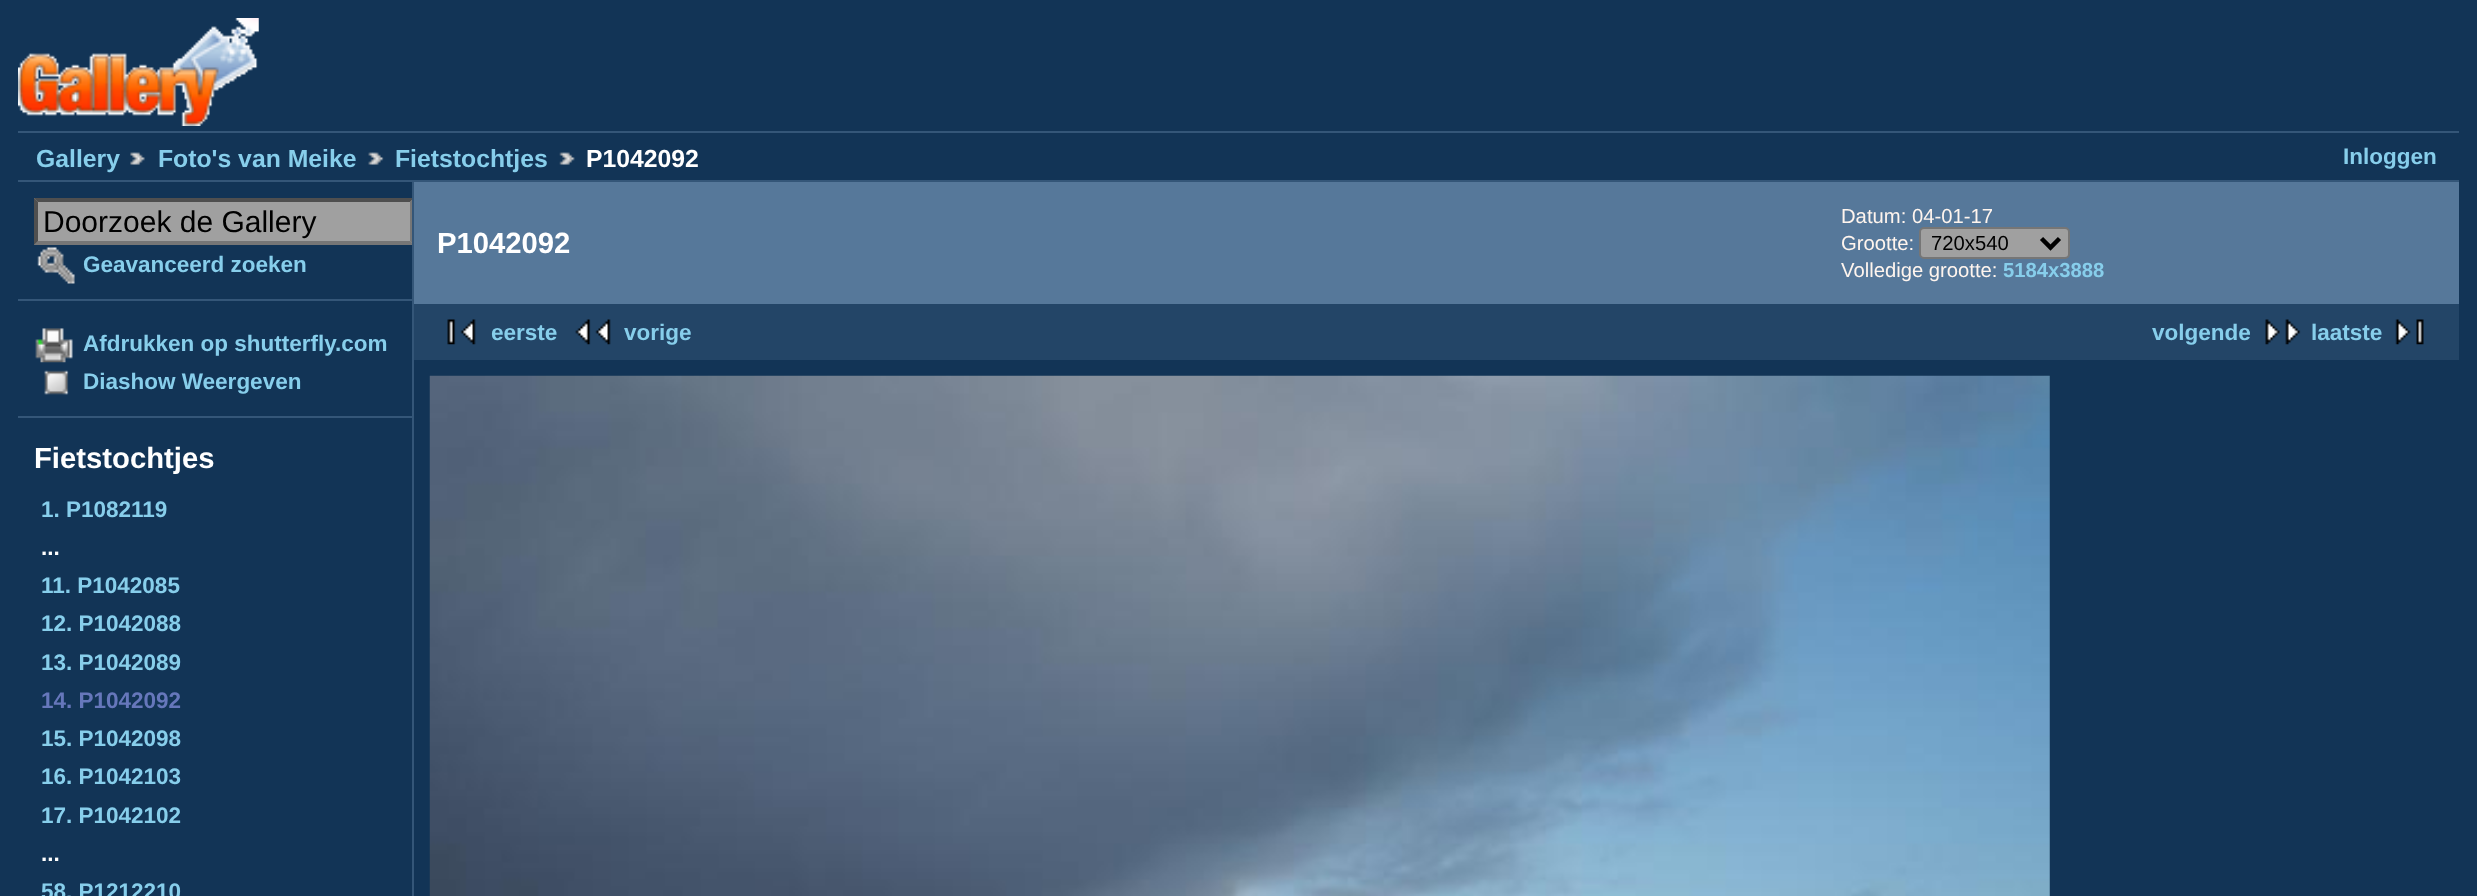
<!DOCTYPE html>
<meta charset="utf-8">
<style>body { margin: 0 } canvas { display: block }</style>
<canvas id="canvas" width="2477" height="896"></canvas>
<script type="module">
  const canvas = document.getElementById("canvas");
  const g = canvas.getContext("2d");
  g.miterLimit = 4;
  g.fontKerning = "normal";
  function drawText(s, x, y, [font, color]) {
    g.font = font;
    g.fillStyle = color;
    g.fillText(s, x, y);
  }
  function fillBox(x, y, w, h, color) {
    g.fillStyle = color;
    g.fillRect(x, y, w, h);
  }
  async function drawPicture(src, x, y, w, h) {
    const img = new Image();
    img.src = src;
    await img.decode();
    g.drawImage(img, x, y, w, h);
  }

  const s1 = ["bold 24.75px Liberation Sans", "#87CEEB"];
  const s2 = ["bold 24.75px Liberation Sans", "#FFFFFF"];
  const s3 = ["bold 22.5px Liberation Sans", "#87CEEB"];
  const s4 = ["30px Liberation Sans", "#000000"];
  const s5 = ["bold 29.25px Liberation Sans", "#FFFFFF"];
  const s6 = ["bold 22.5px Liberation Sans", "#FFFFFF"];
  const s7 = ["bold 22.5px Liberation Sans", "#6677BB"];
  const s8 = ["20.25px Liberation Sans", "#FFF5EE"];
  const s9 = ["20.25px Liberation Sans", "#000000"];
  const s10 = ["bold 20.25px Liberation Sans", "#87CEEB"];

  fillBox(0, 0, 2477, 896, "#123456");
  await drawPicture("pic1.png", 18, 18, 241, 108);
  fillBox(18, 131, 2441, 2, "#345678");
  fillBox(18, 180, 2441, 2, "#345678");
  drawText("Gallery", 36, 167, s1);
  await drawPicture("pic2.png", 130, 152, 15, 13);
  drawText("Foto's van Meike", 158, 167, s1);
  await drawPicture("pic3.png", 368, 152, 16, 13);
  drawText("Fietstochtjes", 395, 167, s1);
  await drawPicture("pic4.png", 559, 152, 16, 13);
  drawText("P1042092", 586, 167, s2);
  drawText("Inloggen", 2343, 164, s3);
  fillBox(412, 182, 2, 714, "#345678");
  fillBox(18, 299, 394, 2, "#345678");
  fillBox(34, 198, 378, 47, "#A0A0A0");
  g.save();
  g.beginPath();
  g.rect(18, 182, 394, 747);
  g.clip();
  g.fillStyle = "#4F4F4F";
  g.beginPath();
  g.moveTo(34, 198);
  g.lineTo(414, 198);
  g.lineTo(410, 202);
  g.lineTo(38, 202);
  g.closePath();
  g.fill();
  g.fillStyle = "#767676";
  g.beginPath();
  g.moveTo(414, 198);
  g.lineTo(414, 245);
  g.lineTo(410, 241);
  g.lineTo(410, 202);
  g.closePath();
  g.fill();
  g.beginPath();
  g.moveTo(414, 245);
  g.lineTo(34, 245);
  g.lineTo(38, 241);
  g.lineTo(410, 241);
  g.closePath();
  g.fill();
  g.restore();
  g.fillStyle = "#4F4F4F";
  g.beginPath();
  g.moveTo(34, 245);
  g.lineTo(34, 198);
  g.lineTo(38, 202);
  g.lineTo(38, 241);
  g.closePath();
  g.fill();
  drawText("Doorzoek de Gallery", 43, 232, s4);
  await drawPicture("pic5.png", 37, 247, 38, 37);
  drawText("Geavanceerd zoeken", 83, 272, s3);
  fillBox(18, 416, 394, 2, "#345678");
  await drawPicture("pic6.png", 35, 328, 38, 35);
  drawText("Afdrukken op shutterfly.com", 83, 351, s3);
  await drawPicture("pic7.png", 44, 370, 25, 25);
  drawText("Diashow Weergeven", 83, 389, s3);
  drawText("Fietstochtjes", 34, 468, s5);
  drawText("1. P1082119", 41, 517, s3);
  drawText("...", 41, 555, s6);
  drawText("11. P1042085", 41, 593, s3);
  drawText("12. P1042088", 41, 631, s3);
  drawText("13. P1042089", 41, 670, s3);
  drawText("14. P1042092", 41, 708, s7);
  drawText("15. P1042098", 41, 746, s3);
  drawText("16. P1042103", 41, 784, s3);
  drawText("17. P1042102", 41, 823, s3);
  drawText("...", 41, 861, s6);
  drawText("58. P1212210", 41, 899, s3);
  fillBox(414, 182, 2045, 122, "#56789A");
  drawText("P1042092", 437, 253, s5);
  drawText("Datum: 04-01-17", 1841, 223, s8);
  drawText("Grootte:", 1841, 250, s8);
  g.fillStyle = "#A0A0A0";
  g.beginPath();
  g.roundRect(1920, 228, 149, 30, 4);
  g.fill();
  g.strokeStyle = "#767676";
  g.lineWidth = 2;
  g.stroke();
  g.beginPath();
  g.moveTo(2041.5, 238.5);
  g.lineTo(2050.5, 247.5);
  g.lineTo(2059.5, 238.5);
  g.strokeStyle = "#000000";
  g.lineWidth = 4.5;
  g.stroke();
  drawText("720x540", 1931, 250, s9);
  drawText("Volledige grootte:", 1841, 277, s8);
  drawText("5184x3888", 2003, 277, s10);
  fillBox(414, 304, 2045, 56, "#234567");
  await drawPicture("pic8.png", 447, 319, 29, 26);
  drawText("eerste", 491, 340, s3);
  await drawPicture("pic9.png", 575, 319, 36, 26);
  drawText("vorige", 624, 340, s3);
  drawText("volgende", 2152, 340, s3);
  await drawPicture("pic10.png", 2265, 319, 36, 26);
  drawText("laatste", 2311, 340, s3);
  await drawPicture("pic11.png", 2395, 319, 29, 26);
  await drawPicture("pic12.png", 429, 375, 1621, 521);
</script>
